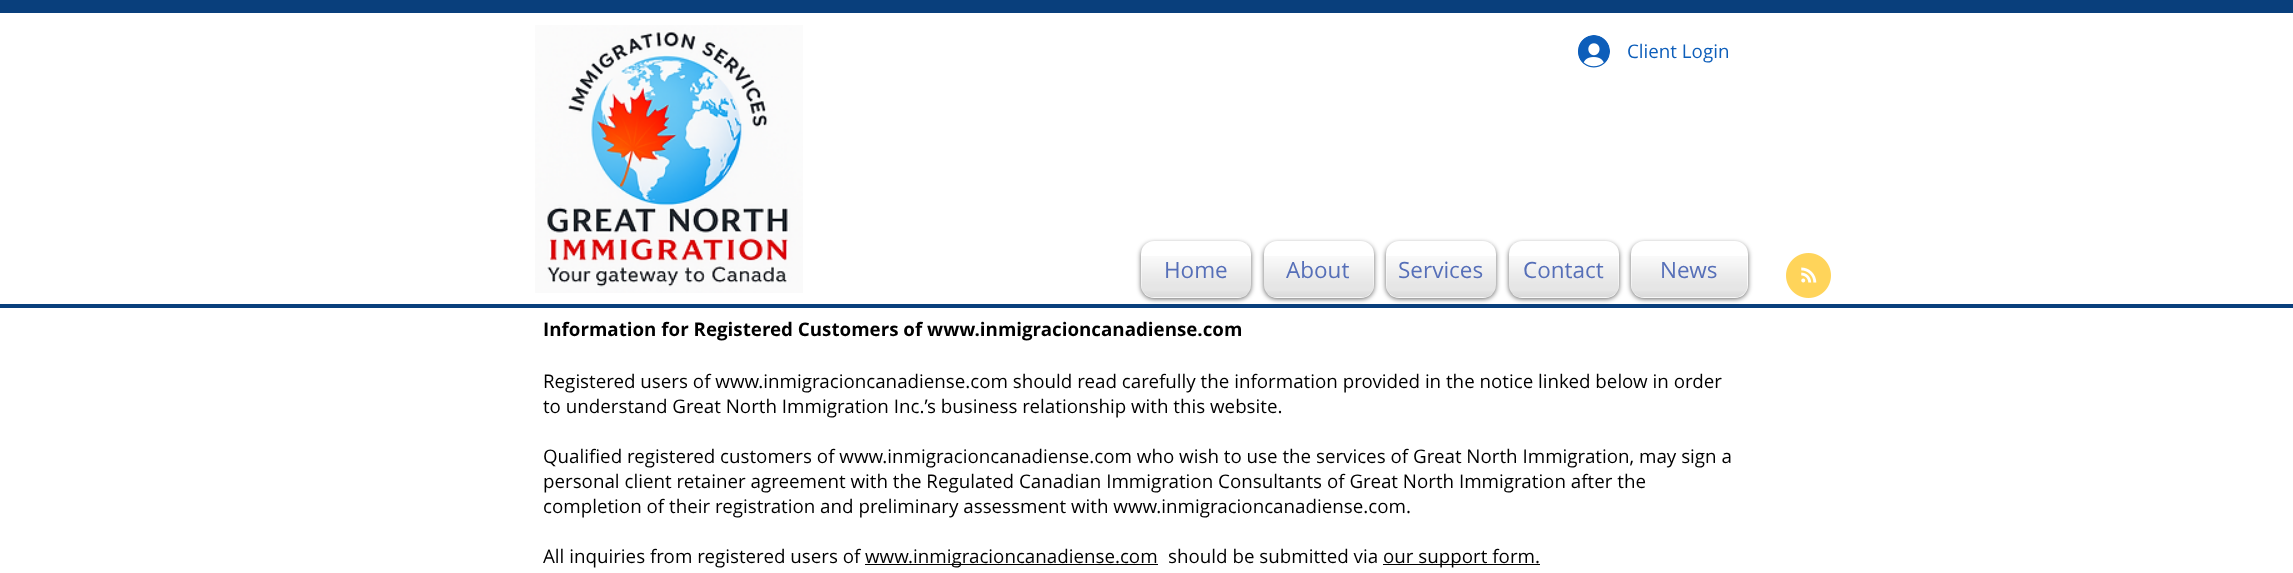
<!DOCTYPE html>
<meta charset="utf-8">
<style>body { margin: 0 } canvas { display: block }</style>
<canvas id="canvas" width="2293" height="573"></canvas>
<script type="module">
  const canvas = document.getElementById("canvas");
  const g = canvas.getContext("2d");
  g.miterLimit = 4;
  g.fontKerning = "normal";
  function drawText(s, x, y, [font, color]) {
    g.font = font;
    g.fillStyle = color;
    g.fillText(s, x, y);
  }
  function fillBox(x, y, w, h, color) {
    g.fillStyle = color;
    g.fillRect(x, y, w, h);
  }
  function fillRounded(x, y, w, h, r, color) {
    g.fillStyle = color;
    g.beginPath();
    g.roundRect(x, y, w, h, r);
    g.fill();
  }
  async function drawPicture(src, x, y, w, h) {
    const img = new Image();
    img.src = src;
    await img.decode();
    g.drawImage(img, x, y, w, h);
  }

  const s1 = ["18.75px Open Sans", "#0D5EBA"];
  const s2 = ["22.5px Open Sans", "#566FB8"];
  const s3 = ["bold 18.75px Open Sans", "#000000"];
  const s4 = ["18.75px Open Sans", "#000000"];

  fillBox(0, 0, 2293, 573, "#FFFFFF");
  fillBox(0, 0, 2293, 13, "#093F7C");
  fillBox(0, 304, 2293, 4, "#093F7C");
  await drawPicture("pic1.png", 535, 25, 268, 268);
  await drawPicture("pic2.png", 1578, 35, 32, 33);
  drawText("Client Login", 1627, 58, s1);
  g.fillStyle = "rgba(0, 0, 0, 0.6)";
  g.filter = "blur(2.5px)";
  g.beginPath();
  g.roundRect(1141, 243, 110, 56, 13);
  g.fill();
  g.filter = "none";
  fillRounded(1141, 241, 110, 57, 13, "#FFFFFF");
  fillBox(1246, 243, 1, 1, "#ECECEC");
  await drawPicture("pic3.png", 1141, 256, 110, 42);
  drawText("Home", 1164, 278, s2);
  g.fillStyle = "rgba(0, 0, 0, 0.6)";
  g.filter = "blur(2.5px)";
  g.beginPath();
  g.roundRect(1264, 243, 110, 56, 13);
  g.fill();
  g.filter = "none";
  fillRounded(1264, 241, 110, 57, 13, "#FFFFFF");
  await drawPicture("pic4.png", 1264, 256, 110, 42);
  drawText("About", 1286, 278, s2);
  g.fillStyle = "rgba(0, 0, 0, 0.6)";
  g.filter = "blur(2.5px)";
  g.beginPath();
  g.roundRect(1386, 243, 110, 56, 13);
  g.fill();
  g.filter = "none";
  fillRounded(1386, 241, 110, 57, 13, "#FFFFFF");
  fillBox(1491, 243, 1, 1, "#ECECEC");
  await drawPicture("pic3.png", 1386, 256, 110, 42);
  drawText("Services", 1398, 278, s2);
  g.fillStyle = "rgba(0, 0, 0, 0.6)";
  g.filter = "blur(2.5px)";
  g.beginPath();
  g.roundRect(1509, 243, 110, 56, 13);
  g.fill();
  g.filter = "none";
  fillRounded(1509, 241, 110, 57, 13, "#FFFFFF");
  fillBox(1513, 243, 1, 1, "#ECECEC");
  await drawPicture("pic5.png", 1509, 256, 110, 42);
  drawText("Contact", 1523, 278, s2);
  g.fillStyle = "rgba(0, 0, 0, 0.6)";
  g.filter = "blur(2.5px)";
  g.beginPath();
  g.roundRect(1631, 243, 117, 56, 13);
  g.fill();
  g.filter = "none";
  fillRounded(1631, 241, 117, 57, 13, "#FFFFFF");
  await drawPicture("pic6.png", 1631, 256, 117, 42);
  drawText("News", 1660, 278, s2);
  await drawPicture("pic7.png", 1786, 253, 45, 45);
  drawText("Information for Registered Customers of www.inmigracioncanadiense.com", 543, 336, s3);
  drawText("Registered users of www.inmigracioncanadiense.com should read carefully the information provided in the notice linked below in order", 543, 388, s4);
  drawText("to understand Great North Immigration Inc.’s business relationship with this website.", 543, 413, s4);
  drawText("Qualified registered customers of www.inmigracioncanadiense.com who wish to use the services of Great North Immigration, may sign a", 543, 463, s4);
  drawText("personal client retainer agreement with the Regulated Canadian Immigration Consultants of Great North Immigration after the", 543, 488, s4);
  drawText("completion of their registration and preliminary assessment with www.inmigracioncanadiense.com.", 543, 513, s4);
  drawText("All inquiries from registered users of", 543, 563, s4);
  fillBox(865, 564, 293, 1, "#000000");
  drawText("www.inmigracioncanadiense.com", 865, 563, s4);
  drawText("should be submitted via", 1168, 563, s4);
  fillBox(1383, 564, 157, 1, "#000000");
  drawText("our support form.", 1383, 563, s4);
</script>
